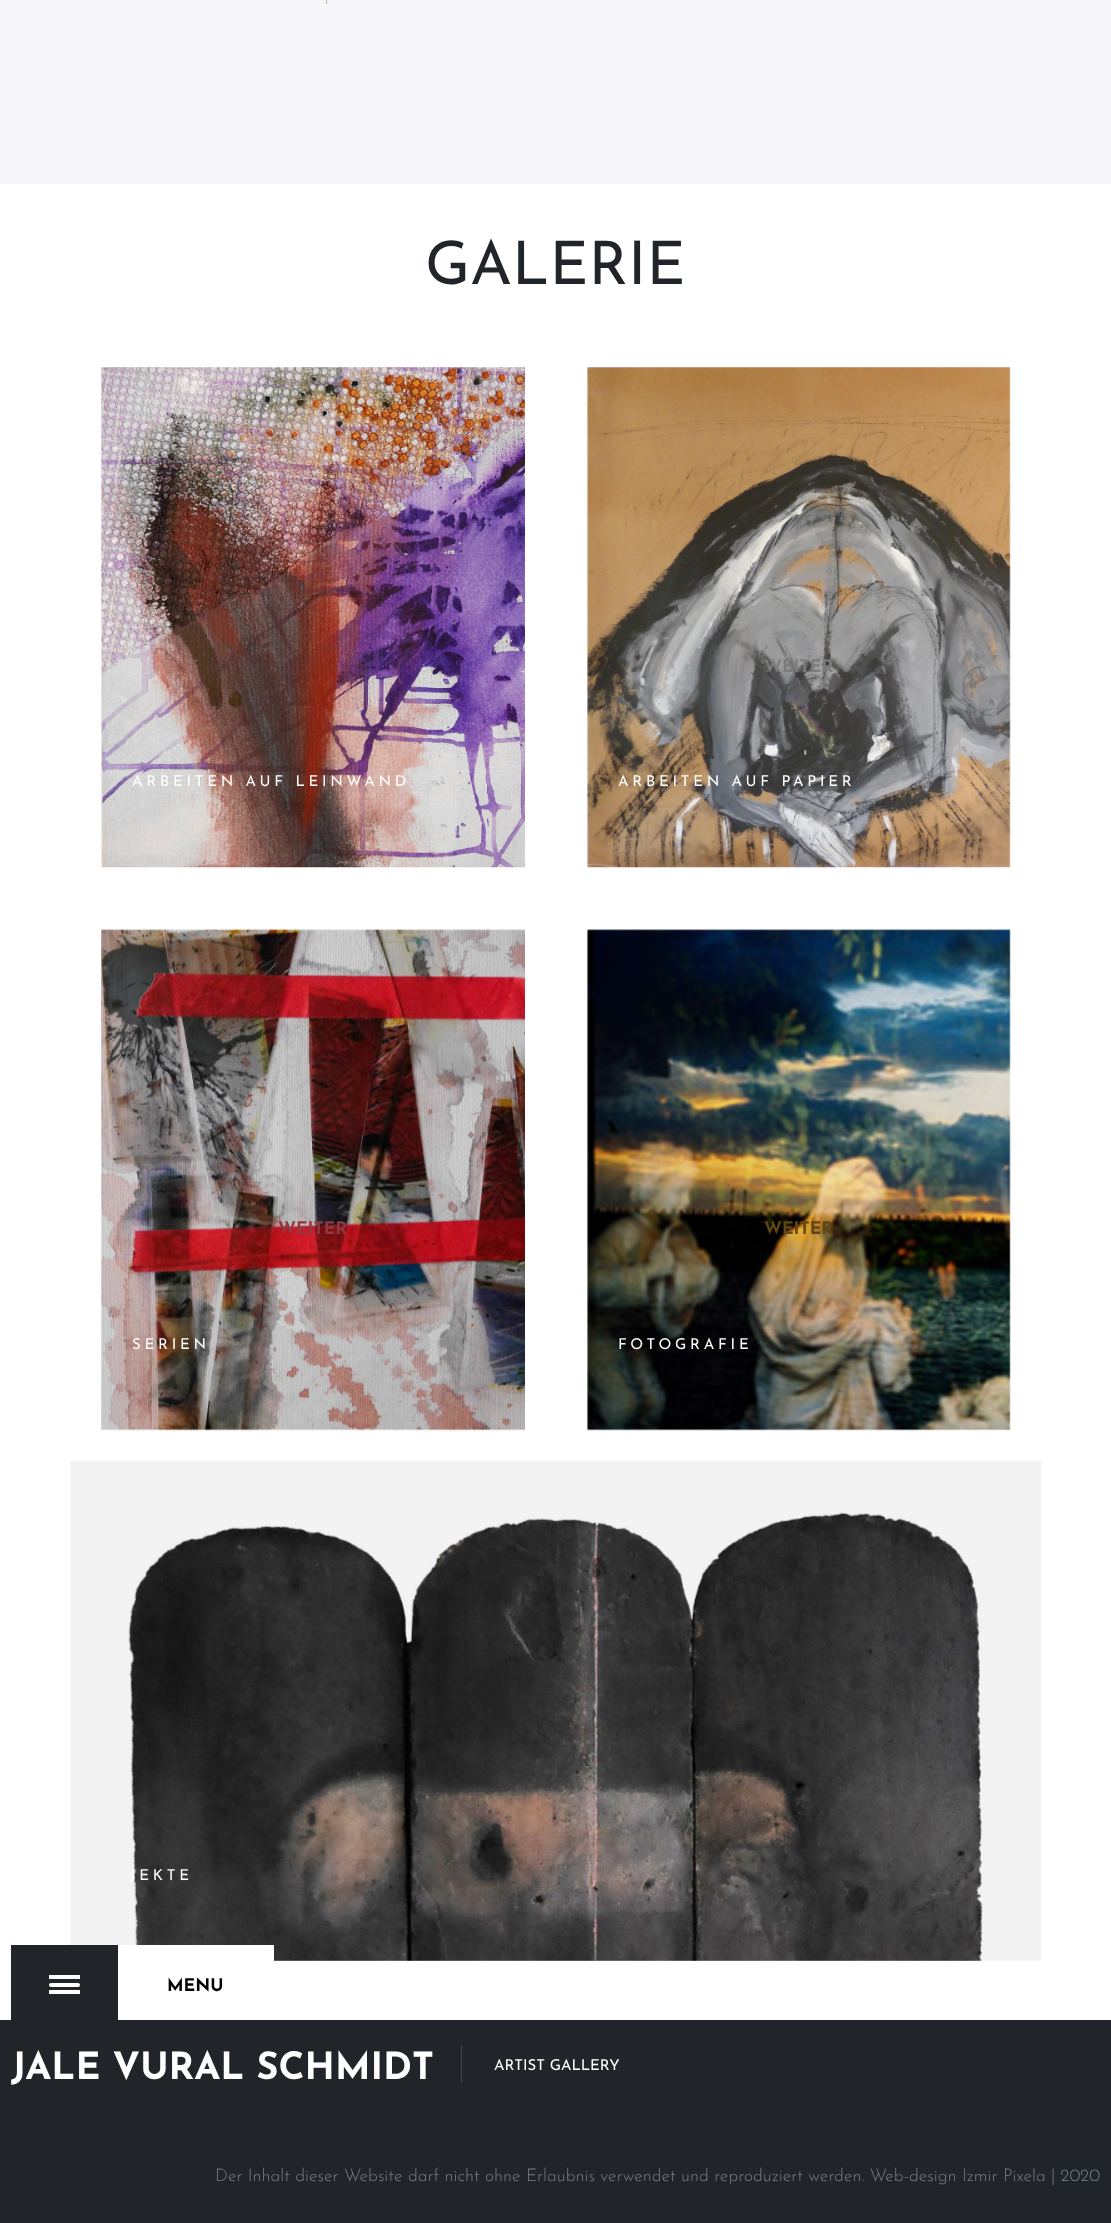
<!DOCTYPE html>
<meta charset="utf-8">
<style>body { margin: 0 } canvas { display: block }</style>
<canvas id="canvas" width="1111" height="2223"></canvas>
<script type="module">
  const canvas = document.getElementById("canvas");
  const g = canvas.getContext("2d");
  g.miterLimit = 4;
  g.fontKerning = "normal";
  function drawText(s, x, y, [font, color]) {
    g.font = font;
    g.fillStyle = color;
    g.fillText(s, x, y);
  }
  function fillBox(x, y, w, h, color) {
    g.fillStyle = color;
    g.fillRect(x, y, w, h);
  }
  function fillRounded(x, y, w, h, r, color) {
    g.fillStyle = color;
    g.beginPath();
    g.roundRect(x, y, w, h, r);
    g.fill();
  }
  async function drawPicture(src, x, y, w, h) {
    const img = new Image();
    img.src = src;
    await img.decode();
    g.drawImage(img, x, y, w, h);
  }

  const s1 = ["60px Josefin Sans", "#212529"];
  const s2 = ["15px Josefin Sans", "#FFFFFF"];
  const s3 = ["bold 17.5px Josefin Sans", "#7D7C7D"];
  const s4 = ["bold 17.5px Josefin Sans", "#913940"];
  const s5 = ["bold 17.5px Josefin Sans", "#604516"];
  const s6 = ["bold 17.5px Josefin Sans", "#414040"];
  const s7 = ["bold 17.5px Josefin Sans", "#000000"];
  const s8 = ["bold 37.5px Josefin Sans", "#FFFFFF"];
  const s9 = ["300 17.5px Josefin Sans", "#7D7C7D"];
  const s10 = ["300 17.5px Josefin Sans", "#7A878D"];

  fillBox(0, 0, 1111, 2223, "#FFFFFF");
  fillBox(0, 0, 1111, 184, "#F6F6F8");
  fillBox(326, 0, 1, 4, "#B6B7BA");
  drawText("GALERIE", 425, 284, s1);
  await drawPicture("pic1.png", 101, 367, 424, 501);
  g.letterSpacing = "3.75px";
  drawText("ARBEITEN AUF LEINWAND", 132, 786, s2);
  await drawPicture("pic2.png", 587, 367, 424, 501);
  g.letterSpacing = "0px";
  drawText("WEITER", 764, 672, s3);
  g.letterSpacing = "3.75px";
  drawText("ARBEITEN AUF PAPIER", 618, 786, s2);
  await drawPicture("pic3.png", 101, 929, 424, 502);
  g.letterSpacing = "0px";
  drawText("WEITER", 278, 1234, s4);
  g.letterSpacing = "3.75px";
  drawText("SERIEN", 132, 1349, s2);
  await drawPicture("pic4.png", 587, 929, 424, 502);
  g.letterSpacing = "0px";
  drawText("WEITER", 764, 1234, s5);
  g.letterSpacing = "3.75px";
  drawText("FOTOGRAFIE", 618, 1349, s2);
  await drawPicture("pic5.png", 70, 1461, 972, 500);
  g.letterSpacing = "0px";
  drawText("R", 578, 1766, s6);
  g.letterSpacing = "3.75px";
  drawText("JEKTE", 130, 1880, s2);
  fillBox(0, 2020, 1111, 203, "#212529");
  fillBox(118, 1945, 156, 16, "#FFFFFF");
  fillBox(11, 1945, 107, 75, "#212529");
  fillRounded(49, 1983, 31, 4, 2, "#FFFFFF");
  fillBox(49, 1975, 31, 4, "#FFFFFF");
  fillBox(49, 1990, 31, 4, "#FFFFFF");
  g.letterSpacing = "0px";
  drawText("MENU", 167, 1991, s7);
  drawText("JALE VURAL SCHMIDT", 11, 2079, s8);
  fillBox(461, 2045, 1, 38, "#424649");
  drawText("ARTIST GALLERY", 494, 2070, s2);
  drawText("Der Inhalt dieser Website darf nicht ohne Erlaubnis verwendet und reproduziert werden. Web-design Izmir Pixela", 215, 2181, s9);
  drawText("| 2020", 1051, 2181, s10);
</script>
